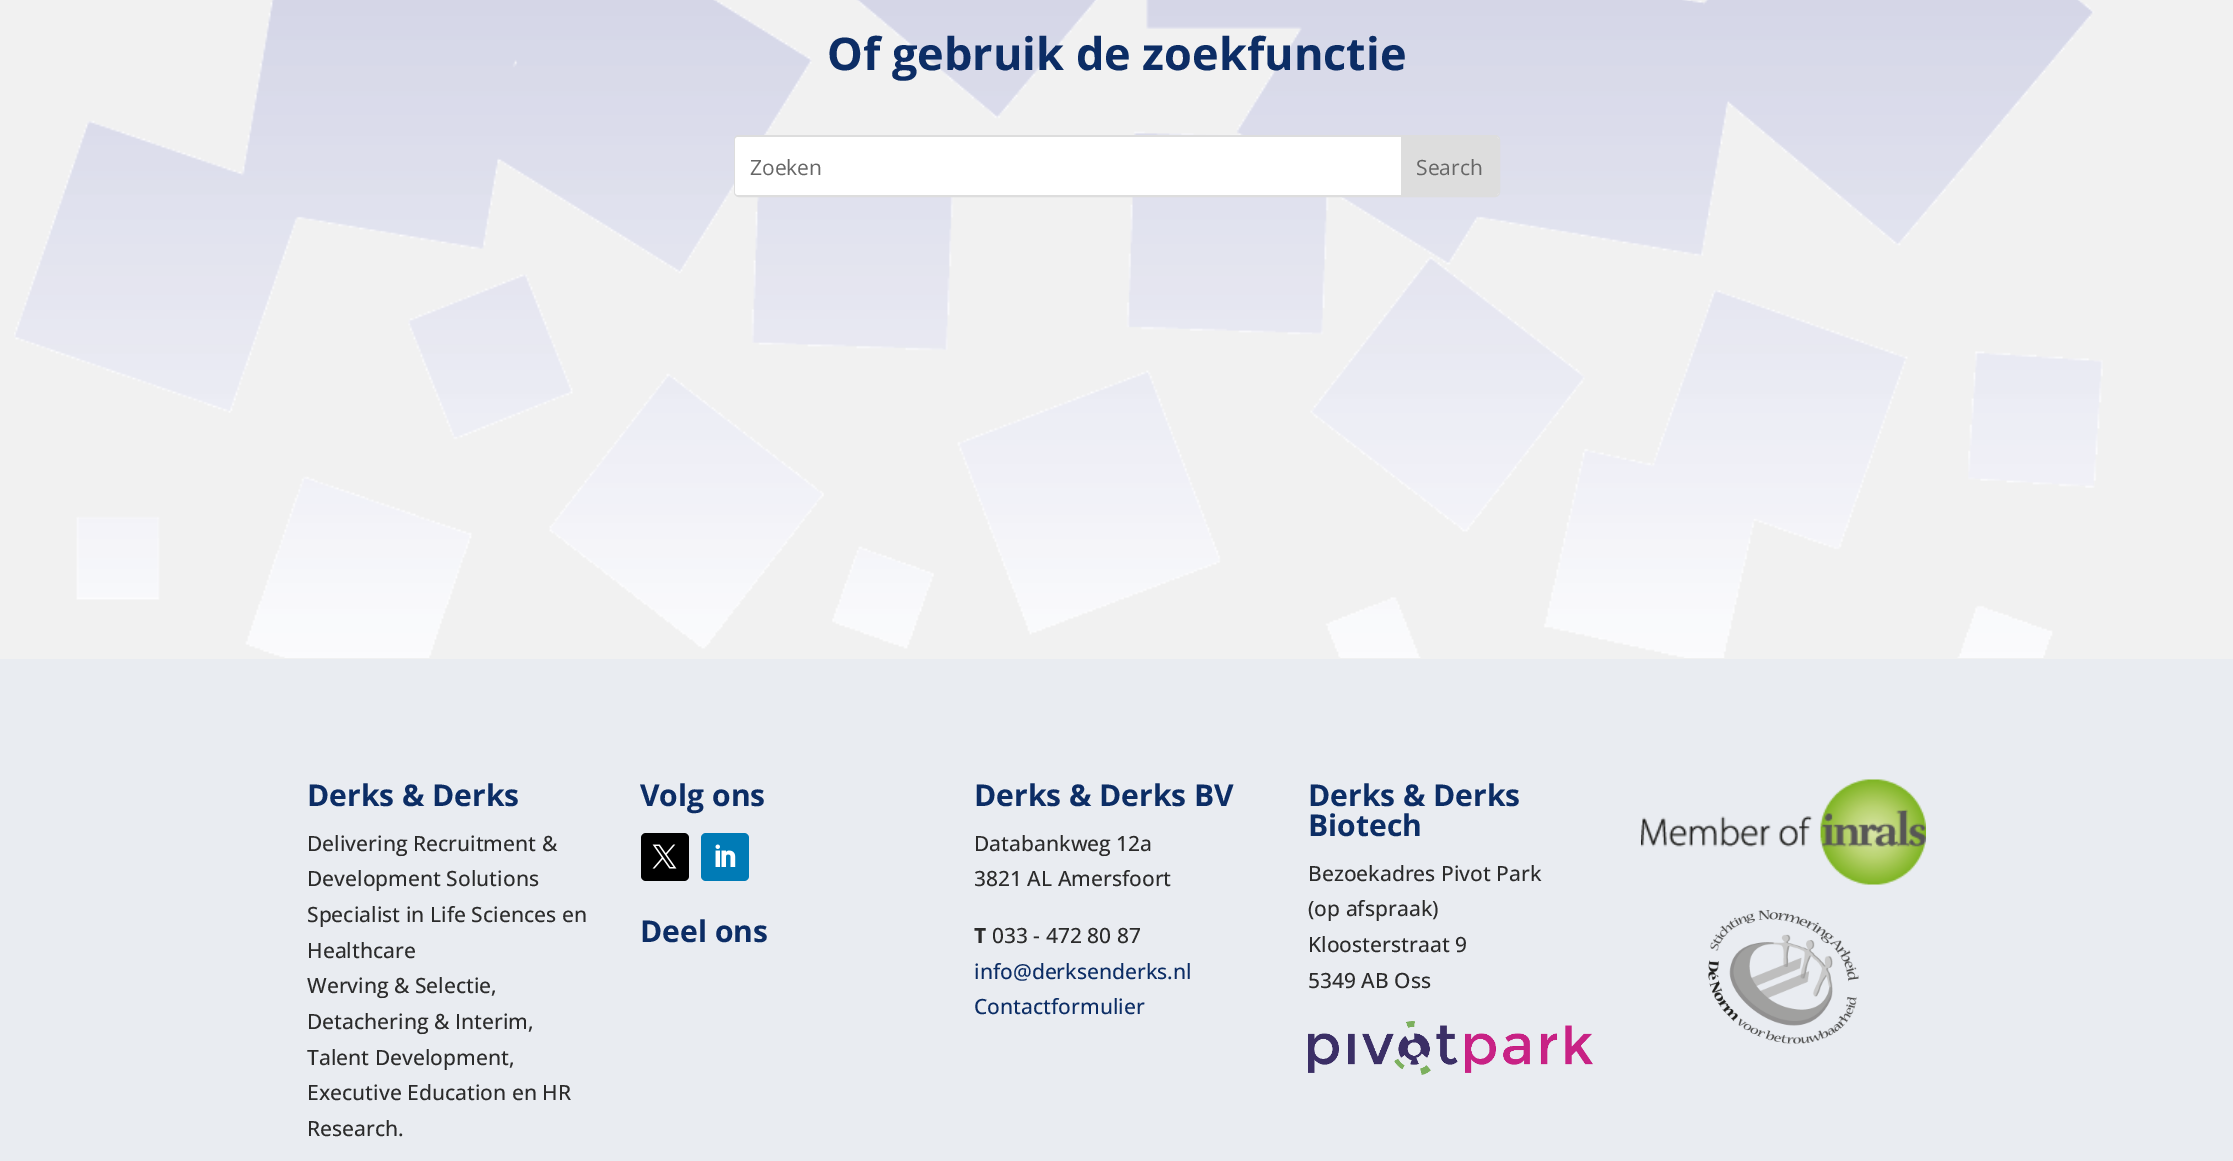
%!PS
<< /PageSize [2233 1161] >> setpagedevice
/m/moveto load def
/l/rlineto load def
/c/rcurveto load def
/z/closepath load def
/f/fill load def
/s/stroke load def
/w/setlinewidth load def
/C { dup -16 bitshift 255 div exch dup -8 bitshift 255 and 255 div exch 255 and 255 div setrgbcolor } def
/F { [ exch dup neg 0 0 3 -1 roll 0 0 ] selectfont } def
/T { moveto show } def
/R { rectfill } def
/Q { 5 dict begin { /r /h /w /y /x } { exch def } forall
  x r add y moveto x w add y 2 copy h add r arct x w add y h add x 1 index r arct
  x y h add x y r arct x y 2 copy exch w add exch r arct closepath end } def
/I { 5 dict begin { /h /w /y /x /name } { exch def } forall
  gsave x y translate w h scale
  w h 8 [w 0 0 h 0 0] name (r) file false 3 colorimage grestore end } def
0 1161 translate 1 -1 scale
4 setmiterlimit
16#F1F1F1 C
0 0 2233 1161 R
(1.rgb) 14 0 2089 658 I
/OpenSans-Bold 45 F
16#0C2D65 C
(Of gebruik de zoekfunctie) 827 70 T
16#DDDDDD C
2 w
735 136 764 60 4 Q s
16#FFFFFF C
735 137 764 58 3 Q f
/OpenSans-Regular 21 F
16#666666 C
(Zoeken) 750 175 T
16#DDDDDD C
1401 137 m 95 0 l 1.5 0 3 1.5 3 3 c 0 52 l 0 1.5 -1.5 3 -3 3 c -95 0 l z f
16#666666 C
(Search) 1416 175 T
16#E9ECF1 C
0 659 2233 502 R
/OpenSans-Bold 30 F
16#0C2D65 C
(Derks & Derks) 307 806 T
/OpenSans-Medium 21 F
16#2B2B2B C
(Delivering Recruitment &) 307 851 T
(Development Solutions) 307 886 T
(Specialist in Life Sciences en) 307 922 T
(Healthcare) 307 958 T
(Werving & Selectie,) 307 993 T
(Detachering & Interim,) 307 1029 T
(Talent Development,) 307 1065 T
(Executive Education en HR) 307 1100 T
(Research.) 307 1136 T
/OpenSans-Bold 30 F
16#0C2D65 C
(Volg ons) 640 806 T
16#000000 C
641 833 48 48 5 Q f
(2.rgb) 652 844 25 25 I
16#007BB6 C
701 833 48 48 5 Q f
(3.rgb) 715 844 21 23 I
16#0C2D65 C
(Deel ons) 640 942 T
(Derks & Derks BV) 974 806 T
/OpenSans-Medium 21 F
16#2B2B2B C
(Databankweg 12a) 974 851 T
(3821 AL Amersfoort) 974 886 T
/OpenSans-Bold 21 F
(T) 974 943 T
/OpenSans-Medium 21 F
(033 - 472 80 87) 992 943 T
16#0C2D65 C
(info@derksenderks.nl) 974 979 T
(Contactformulier) 974 1014 T
/OpenSans-Bold 30 F
(Derks & Derks) 1308 806 T
(Biotech) 1308 836 T
/OpenSans-Medium 21 F
16#2B2B2B C
(Bezoekadres Pivot Park) 1308 881 T
(\(op afspraak\)) 1308 916 T
(Kloosterstraat 9) 1308 952 T
(5349 AB Oss) 1308 988 T
(4.rgb) 1308 1021 285 54 I
(5.rgb) 1641 779 285 106 I
(6.rgb) 1708 910 151 134 I
showpage
